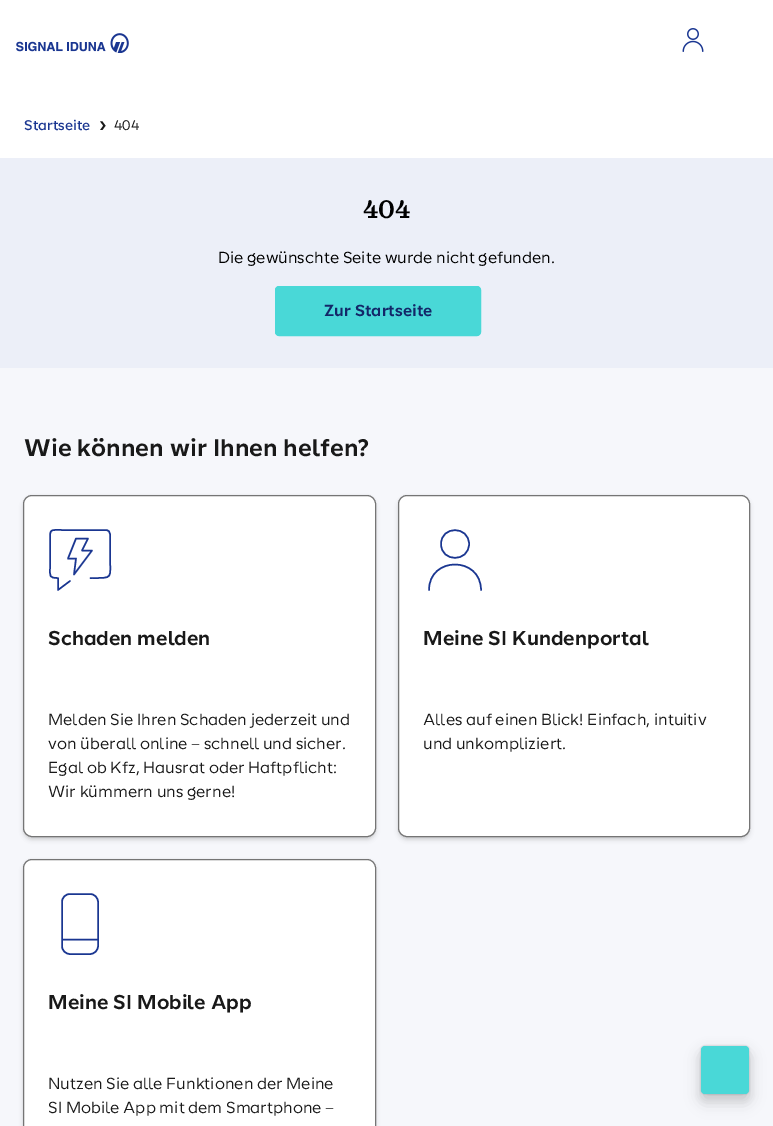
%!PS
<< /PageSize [773 1126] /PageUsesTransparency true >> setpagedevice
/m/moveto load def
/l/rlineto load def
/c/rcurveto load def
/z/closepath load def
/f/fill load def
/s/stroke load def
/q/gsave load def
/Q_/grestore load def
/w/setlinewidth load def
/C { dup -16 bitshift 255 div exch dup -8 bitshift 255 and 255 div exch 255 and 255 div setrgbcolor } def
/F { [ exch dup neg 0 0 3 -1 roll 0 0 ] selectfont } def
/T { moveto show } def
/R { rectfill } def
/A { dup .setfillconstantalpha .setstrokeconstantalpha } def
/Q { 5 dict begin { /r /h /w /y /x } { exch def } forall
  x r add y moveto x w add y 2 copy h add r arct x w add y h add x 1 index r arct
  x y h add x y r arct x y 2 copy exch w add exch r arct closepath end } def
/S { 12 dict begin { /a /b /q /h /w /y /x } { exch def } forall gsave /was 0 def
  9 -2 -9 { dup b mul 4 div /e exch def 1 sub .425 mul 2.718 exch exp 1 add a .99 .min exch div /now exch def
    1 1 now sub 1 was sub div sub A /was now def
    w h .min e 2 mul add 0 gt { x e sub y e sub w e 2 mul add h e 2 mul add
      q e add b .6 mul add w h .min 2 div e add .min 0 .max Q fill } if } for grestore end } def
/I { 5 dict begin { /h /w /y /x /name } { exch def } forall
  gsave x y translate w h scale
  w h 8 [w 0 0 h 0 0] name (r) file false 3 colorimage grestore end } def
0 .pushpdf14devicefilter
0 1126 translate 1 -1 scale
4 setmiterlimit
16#FFFFFF C
0 0 773 1126 R
(1.rgb) 16 33 113 20 I
(2.rgb) 682 28 22 24 I
16#F6F7FB C
0 368 773 758 R
16#000000 C
701 1046 48 48 4 1 .2 S
701 1052 48 48 4 6 .12 S
701 1054 48 48 4 8 .1 S
16#49D8D7 C
701 1046 48 48 4 Q f
/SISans-Medium 14 F
16#1A3691 C
(Startseite) 24 130 T
/SISans-Medium 24 F
16#191919 C
(›) 99 132 T
/SISans-Regular 14 F
(404) 114 130 T
16#ECEFF8 C
0 158 773 210 R
/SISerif-SemiBold 26 F
16#000000 C
(404) 363 218 T
/SISans-Regular 16 F
(Die gewünschte Seite wurde nicht gefunden.) 218 263 T
16#49D8D7 C
275.5 286.5 205 49 3.5 Q q f Q_
s
/SISans-SemiBold 16 F
16#132768 C
(Zur Startseite) 324 316 T
/SISans-SemiBold 24 F
16#191919 C
(Wie können wir Ihnen helfen?) 24 456 T
16#000000 C
24 496 351 340 8 1 .23 S
24 499 351 340 8 2.5 .2 S
16#FFFFFF C
24 496 351 340 8 Q f
16#757575 C
23.5 495.5 352 341 8.5 Q s
16#1A3691 C
1.5 w
1 setlinecap
1 setlinejoin
70 581 m -12 9 l 0 -12 l -9 0 -8 -1.5 -8 -10.5 c 0 -27 l 0 -12 0 -10.5 12.5 -10.5 c 43.5 0 l 5.5 0 4 7.5 4 10.5 c 0 13 l 0 26 4.5 24.5 -19.5 24.5 c 76 538.5 m 12 0 l -6 12 l 10 0 l -18 24 l 2 -16 l -8 0 l z s
/SISans-SemiBold 20 F
16#191919 C
(Schaden melden) 48 645 T
/SISans-Regular 16 F
(Melden Sie Ihren Schaden jederzeit und) 48 725 T
(von überall online – schnell und sicher.) 48 749 T
(Egal ob Kfz, Hausrat oder Haftpflicht:) 48 773 T
(Wir kümmern uns gerne!) 48 797 T
16#000000 C
399 496 350 340 8 1 .23 S
399 499 350 340 8 2.5 .2 S
16#FFFFFF C
399 496 350 340 8 Q f
16#757575 C
1 w
0 setlinecap
0 setlinejoin
398.5 495.5 351 341 8.5 Q s
16#1A3691 C
1.5 w
1 setlinecap
1 setlinejoin
441 544 m 0 18.5 28 18.5 28 0 c 0 -18.5 -28 -18.5 -28 0 c z 429 590 m 0 -34 52 -34 52 0 c s
/SISans-SemiBold 20 F
16#191919 C
(Meine SI Kundenportal) 423 645 T
/SISans-Regular 16 F
(Alles auf einen Blick! Einfach, intuitiv) 423 725 T
(und unkompliziert.) 423 749 T
16#000000 C
24 860 351 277 8 1 .23 S
24 863 351 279 8 2.5 .2 S
16#FFFFFF C
24 860 351 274 8 Q f
16#757575 C
1 w
0 setlinecap
0 setlinejoin
23.5 859.5 352 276 8.5 Q s
16#1A3691 C
1.5 w
1 setlinecap
1 setlinejoin
90 894 m -20 0 l -4.5 0 -8 3.5 -8 8 c 0 44 l 0 4.5 3.5 8 8 8 c 20 0 l 4.5 0 8 -3.5 8 -8 c 0 -44 l 0 -4.5 -3.5 -8 -8 -8 c z 62 939.5 m 36 0 l s
/SISans-SemiBold 20 F
16#191919 C
(Meine SI Mobile App) 48 1009 T
/SISans-Regular 16 F
(Nutzen Sie alle Funktionen der Meine) 48 1089 T
(SI Mobile App mit dem Smartphone –) 48 1113 T
.poppdf14devicefilter showpage
